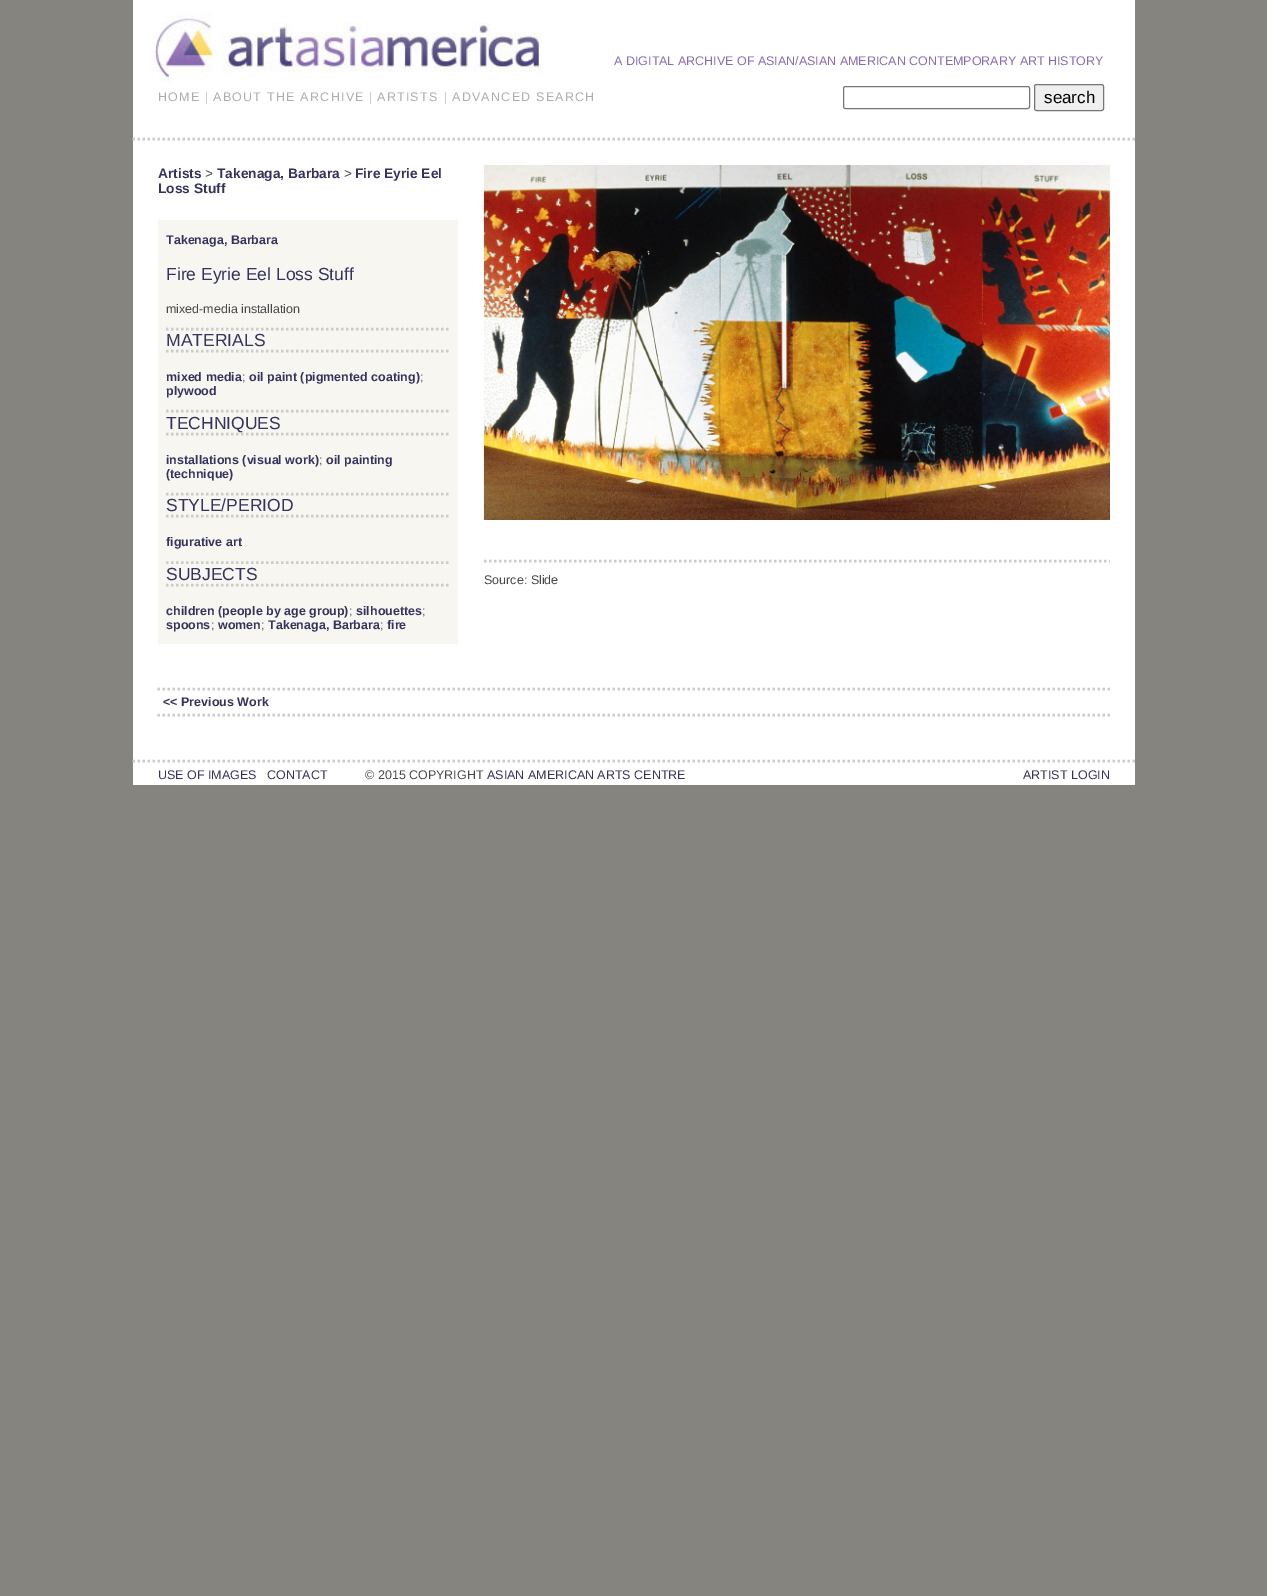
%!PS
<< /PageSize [1267 1596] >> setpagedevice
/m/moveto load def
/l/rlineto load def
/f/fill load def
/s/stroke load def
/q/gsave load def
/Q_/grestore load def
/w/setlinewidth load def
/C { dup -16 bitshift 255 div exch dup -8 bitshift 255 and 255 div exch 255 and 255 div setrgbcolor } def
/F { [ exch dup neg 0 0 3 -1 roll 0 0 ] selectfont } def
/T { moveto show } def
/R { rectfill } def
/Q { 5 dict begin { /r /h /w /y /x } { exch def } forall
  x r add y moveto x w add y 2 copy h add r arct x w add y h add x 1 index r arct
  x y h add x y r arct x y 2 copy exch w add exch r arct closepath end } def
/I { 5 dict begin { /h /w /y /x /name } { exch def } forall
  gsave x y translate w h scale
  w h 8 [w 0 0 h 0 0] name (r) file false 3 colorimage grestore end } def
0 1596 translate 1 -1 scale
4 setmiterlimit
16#85847F C
0 0 1267 1596 R
16#FFFFFF C
133 0 1002 785 R
(1.rgb) 151 12 391 70 I
/LiberationSans-Regular 12.5 F
16#8B6BB5 C
(A DIGITAL ARCHIVE OF ASIAN/ASIAN AMERICAN CONTEMPORARY ART HISTORY) 614 65 T
16#ADADAD C
158 101 m 1.25 0 (HOME) ashow
16#CCCCCC C
205 101 m 1.25 0 (|) ashow
16#ADADAD C
213 101 m 1.25 0 (ABOUT THE ARCHIVE) ashow
16#CCCCCC C
369 101 m 1.25 0 (|) ashow
16#ADADAD C
377 101 m 1.25 0 (ARTISTS) ashow
16#CCCCCC C
444 101 m 1.25 0 (|) ashow
16#ADADAD C
452 101 m 1.25 0 (ADVANCED SEARCH) ashow
16#767676 C
843.5 86.5 186 22 2 Q s
16#EFEFEF C
1034.5 84.5 69 26 2 Q q f Q_
16#767676 C
s
/LiberationSans-Regular 17 F
16#000000 C
(search) 1044 103 T
16#CCCCCC C
2.5 w
[2.5 2.5] 0 setdash
132.5 139 m 1002.5 0 l s
/LiberationSans-Bold 13.75 F
16#35335E C
(Artists) 158 178 T
/LiberationSans-Regular 13.75 F
16#48484A C
(>) 205 178 T
/LiberationSans-Bold 13.75 F
16#35335E C
(Takenaga, Barbara) 217 178 T
/LiberationSans-Regular 13.75 F
16#48484A C
(>) 344 178 T
/LiberationSans-Bold 13.75 F
16#35335E C
(Fire Eyrie Eel) 355 178 T
(Loss Stuff) 158 193 T
16#F7F6F1 C
158 220 300 424 R
/LiberationSans-Bold 12.5 F
16#35335E C
(Takenaga, Barbara) 166 244 T
/LiberationSans-Regular 17.5 F
(Fire Eyrie Eel Loss Stuff) 166 280 T
/LiberationSans-Regular 12.5 F
16#48484A C
(mixed-media installation) 166 313 T
16#CCCCCC C
166 329 m 283 0 l s
166 351 m 283 0 l s
/LiberationSans-Regular 17.5 F
16#35335E C
(MATERIALS) 166 346 T
/LiberationSans-Bold 12.5 F
(mixed media) 166 381 T
/LiberationSans-Regular 12.5 F
16#48484A C
(;) 242 381 T
/LiberationSans-Bold 12.5 F
16#35335E C
(oil paint \(pigmented coating\)) 249 381 T
/LiberationSans-Regular 12.5 F
16#48484A C
(;) 420 381 T
/LiberationSans-Bold 12.5 F
16#35335E C
(plywood) 166 395 T
16#CCCCCC C
166 411 m 283 0 l s
166 434 m 283 0 l s
/LiberationSans-Regular 17.5 F
16#35335E C
(TECHNIQUES) 166 429 T
/LiberationSans-Bold 12.5 F
(installations \(visual work\)) 166 464 T
/LiberationSans-Regular 12.5 F
16#48484A C
(;) 319 464 T
/LiberationSans-Bold 12.5 F
16#35335E C
(oil painting) 326 464 T
(\(technique\)) 166 478 T
16#CCCCCC C
166 494 m 283 0 l s
166 516 m 283 0 l s
/LiberationSans-Regular 17.5 F
16#35335E C
(STYLE/PERIOD) 166 511 T
/LiberationSans-Bold 12.5 F
(figurative art) 166 546 T
16#CCCCCC C
166 562.5 m 283 0 l s
166 585 m 283 0 l s
/LiberationSans-Regular 17.5 F
16#35335E C
(SUBJECTS) 166 580 T
/LiberationSans-Bold 12.5 F
(children \(people by age group\)) 166 615 T
/LiberationSans-Regular 12.5 F
16#48484A C
(;) 349 615 T
/LiberationSans-Bold 12.5 F
16#35335E C
(silhouettes) 356 615 T
/LiberationSans-Regular 12.5 F
16#48484A C
(;) 422 615 T
/LiberationSans-Bold 12.5 F
16#35335E C
(spoons) 166 629 T
/LiberationSans-Regular 12.5 F
16#48484A C
(;) 211 629 T
/LiberationSans-Bold 12.5 F
16#35335E C
(women) 218 629 T
/LiberationSans-Regular 12.5 F
16#48484A C
(;) 261 629 T
/LiberationSans-Bold 12.5 F
16#35335E C
(Takenaga, Barbara) 268 629 T
/LiberationSans-Regular 12.5 F
16#48484A C
(;) 380 629 T
/LiberationSans-Bold 12.5 F
16#35335E C
(fire) 387 629 T
16#CCCCCC C
484 561 m 626 0 l s
(2.rgb) 483 165 627 355 I
/LiberationSans-Regular 12.5 F
16#48484A C
(Source: Slide) 484 584 T
16#CCCCCC C
157.5 689 m 952.5 0 l s
157.5 715 m 952.5 0 l s
/LiberationSans-Bold 12.5 F
16#35335E C
(<< Previous Work) 163 706 T
16#CCCCCC C
132.5 761 m 1002.5 0 l s
/LiberationSans-Regular 12.5 F
16#35335E C
(USE OF IMAGES) 158 779 T
(CONTACT) 267 779 T
16#48484A C
(© 2015 COPYRIGHT) 365 779 T
16#35335E C
(ASIAN AMERICAN ARTS CENTRE) 487 779 T
(ARTIST LOGIN) 1023 779 T
showpage
